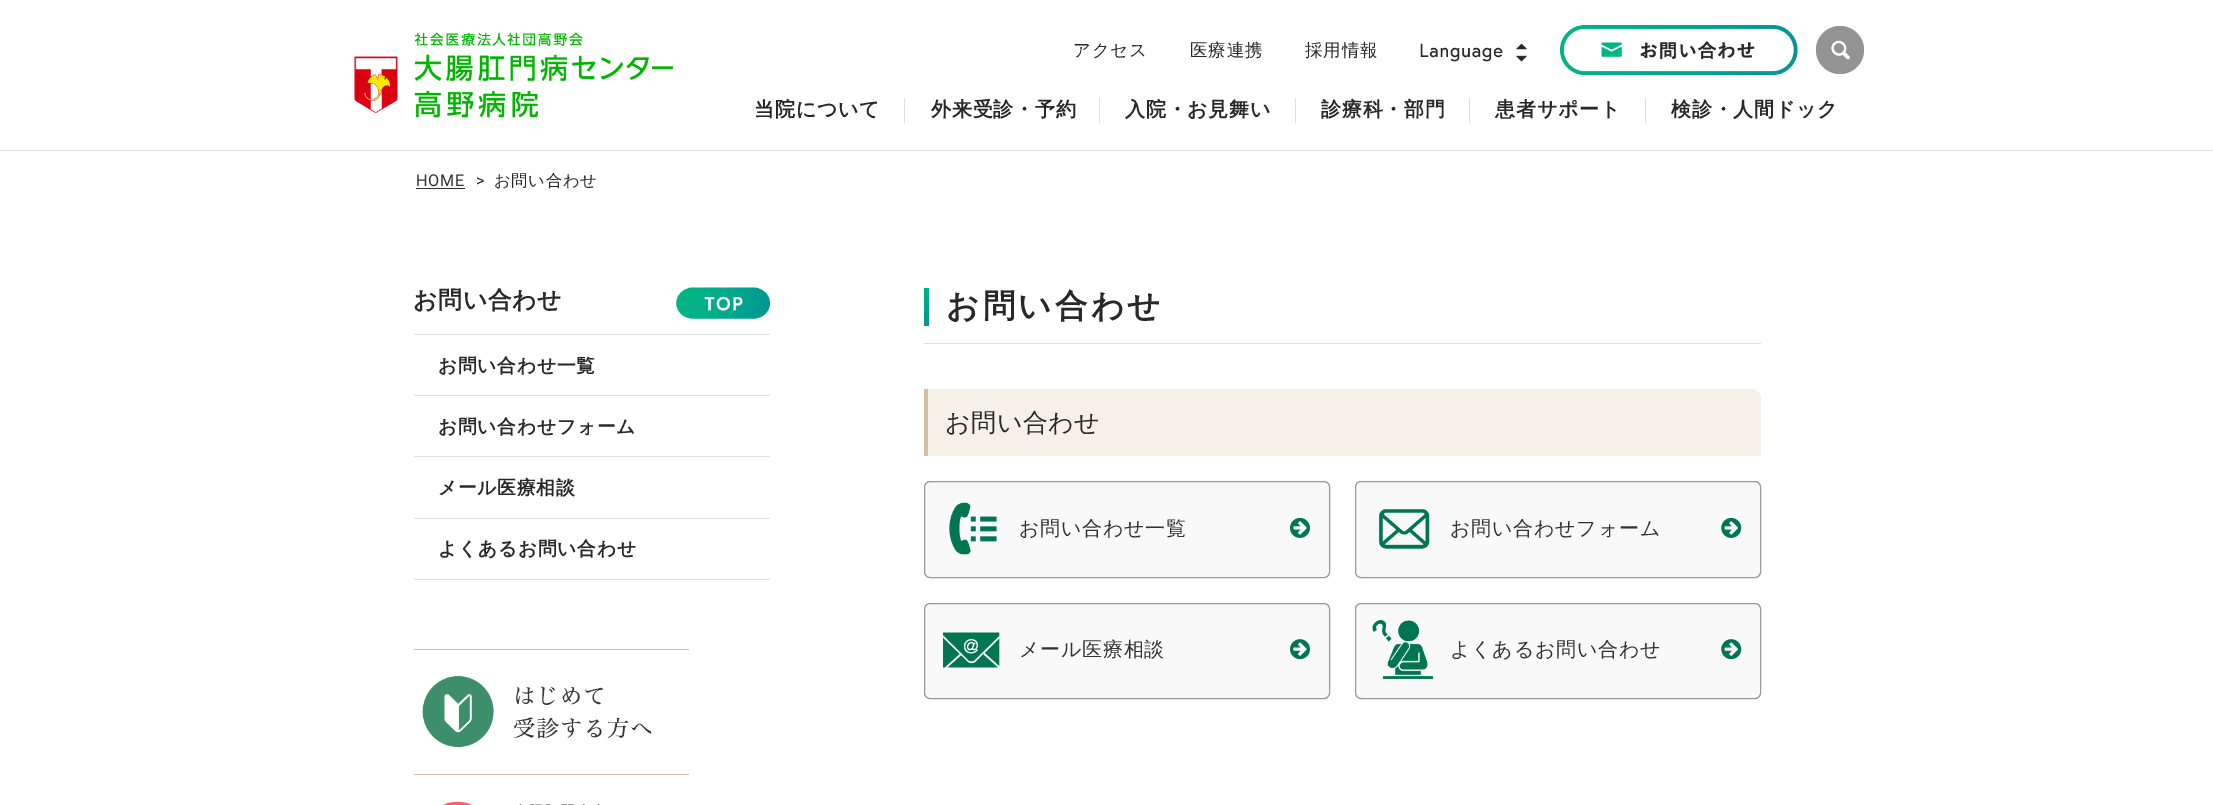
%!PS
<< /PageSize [2213 805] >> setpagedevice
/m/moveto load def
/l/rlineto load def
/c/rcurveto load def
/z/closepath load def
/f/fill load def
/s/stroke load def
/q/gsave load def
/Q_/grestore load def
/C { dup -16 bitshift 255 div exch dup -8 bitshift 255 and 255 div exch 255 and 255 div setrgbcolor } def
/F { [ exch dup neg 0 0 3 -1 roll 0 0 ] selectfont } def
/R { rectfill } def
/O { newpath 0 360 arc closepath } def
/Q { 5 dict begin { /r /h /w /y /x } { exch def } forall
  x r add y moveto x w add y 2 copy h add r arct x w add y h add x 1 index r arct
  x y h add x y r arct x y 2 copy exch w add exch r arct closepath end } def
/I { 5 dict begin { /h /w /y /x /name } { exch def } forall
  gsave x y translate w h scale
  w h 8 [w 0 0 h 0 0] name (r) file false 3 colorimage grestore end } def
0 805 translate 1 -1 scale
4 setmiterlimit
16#FFFFFF C
0 0 2213 805 R
(1.rgb) 354 32 319 86 I
/WenQuanYiZenHei-Medium 17.5 F
16#282828 C
1073 56 m .75 0 (アクセス) ashow
1190 56 m .75 0 (医療連携) ashow
1305 56 m .75 0 (採用情報) ashow
(2.rgb) 1420 43 107 19 I
(3.rgb) 1560 25 238 50 I
16#939393 C
1840 50 24 O f
(4.rgb) 1831 40 19 20 I
/WenQuanYiZenHei-Bold 20 F
16#282828 C
754 116 m .75 0 (当院について) ashow
16#DFDFDF C
904 98 1 25 R
16#282828 C
931 116 m .75 0 (外来受診・予約) ashow
16#DFDFDF C
1099 98 1 25 R
16#282828 C
1125 116 m .75 0 (入院・お見舞い) ashow
16#DFDFDF C
1295 98 1 25 R
16#282828 C
1321 116 m .75 0 (診療科・部門) ashow
16#DFDFDF C
1469 98 1 25 R
16#282828 C
1495 116 m .75 0 (患者サポート) ashow
16#DFDFDF C
1645 98 1 25 R
16#282828 C
1671 116 m .75 0 (検診・人間ドック) ashow
16#DFDFDF C
0 150 2213 1 R
/Roboto-Regular 16.25 F
16#333333 C
416 186 m .75 0 (HOME) ashow
416 188 49 1 R
16#282828 C
476 186 m .75 0 (>) ashow
/WenQuanYiZenHei-Medium 16.25 F
494 186 m .75 0 (お問い合わせ) ashow
/WenQuanYiZenHei-Bold 23.75 F
413 308 m .75 0 (お問い合わせ) ashow
(5.rgb) 676 287 94 32 I
16#DFDFDF C
414 334 356 1 R
/WenQuanYiZenHei-Bold 18.75 F
16#282828 C
438 372 m .75 0 (お問い合わせ一覧) ashow
16#DFDFDF C
414 395 356 1 R
16#282828 C
438 433 m .75 0 (お問い合わせフォーム) ashow
16#DFDFDF C
414 456 356 1 R
16#282828 C
438 494 m .75 0 (メール医療相談) ashow
16#DFDFDF C
414 518 356 1 R
414 579 356 1 R
16#282828 C
438 555 m .75 0 (よくあるお問い合わせ) ashow
16#D2BF9F C
414 649 275 1 R
414 774 275 1 R
(6.rgb) 422 675 230 73 I
(7.rgb) 442 801 158 4 I
q 924 288 m 5 0 l 0 38 l -5 0 l z clip newpath
<< /ShadingType 2 /ColorSpace /DeviceRGB /Coords [926 288 926 326] /Extend [true true] /Function << /FunctionType 2 /Domain [0 1] /C0 [0 .71 .522] /C1 [.016 .58 .596] /N 1 >> >> shfill Q_
/WenQuanYiZenHei-Bold 32.5 F
16#282828 C
946 317 m 3.25 0 (お問い合わせ) ashow
16#DFDFDF C
924 343 837 1 R
16#F5F1E9 C
924 389 m 827 0 l 5.5 0 10 4.5 10 10 c 0 57 l -837 0 l z f
16#D2BF9F C
924 389 4 67 R
/WenQuanYiZenHei-Medium 25 F
16#282828 C
945 431 m .5 0 (お問い合わせ) ashow
16#F9F9F9 C
924.5 481.5 405 96 5.5 Q q f Q_
16#999999 C
s
(8.rgb) 949 502 48 53 I
/WenQuanYiZenHei-Medium 20 F
16#333333 C
1019 535 m .75 0 (お問い合わせ一覧) ashow
(9.rgb) 1290 517 20 21 I
16#F9F9F9 C
1355.5 481.5 405 96 5.5 Q q f Q_
16#999999 C
s
(10.rgb) 1378 509 52 40 I
16#333333 C
1450 535 m .75 0 (お問い合わせフォーム) ashow
(11.rgb) 1721 517 21 21 I
16#F9F9F9 C
924.5 603.5 405 95 5.5 Q q f Q_
16#999999 C
s
(12.rgb) 943 632 57 36 I
16#333333 C
1019 656 m .75 0 (メール医療相談) ashow
(13.rgb) 1290 639 20 21 I
16#F9F9F9 C
1355.5 603.5 405 95 5.5 Q q f Q_
16#999999 C
s
(14.rgb) 1372 620 61 59 I
16#333333 C
1450 656 m .75 0 (よくあるお問い合わせ) ashow
(15.rgb) 1721 639 21 21 I
showpage
